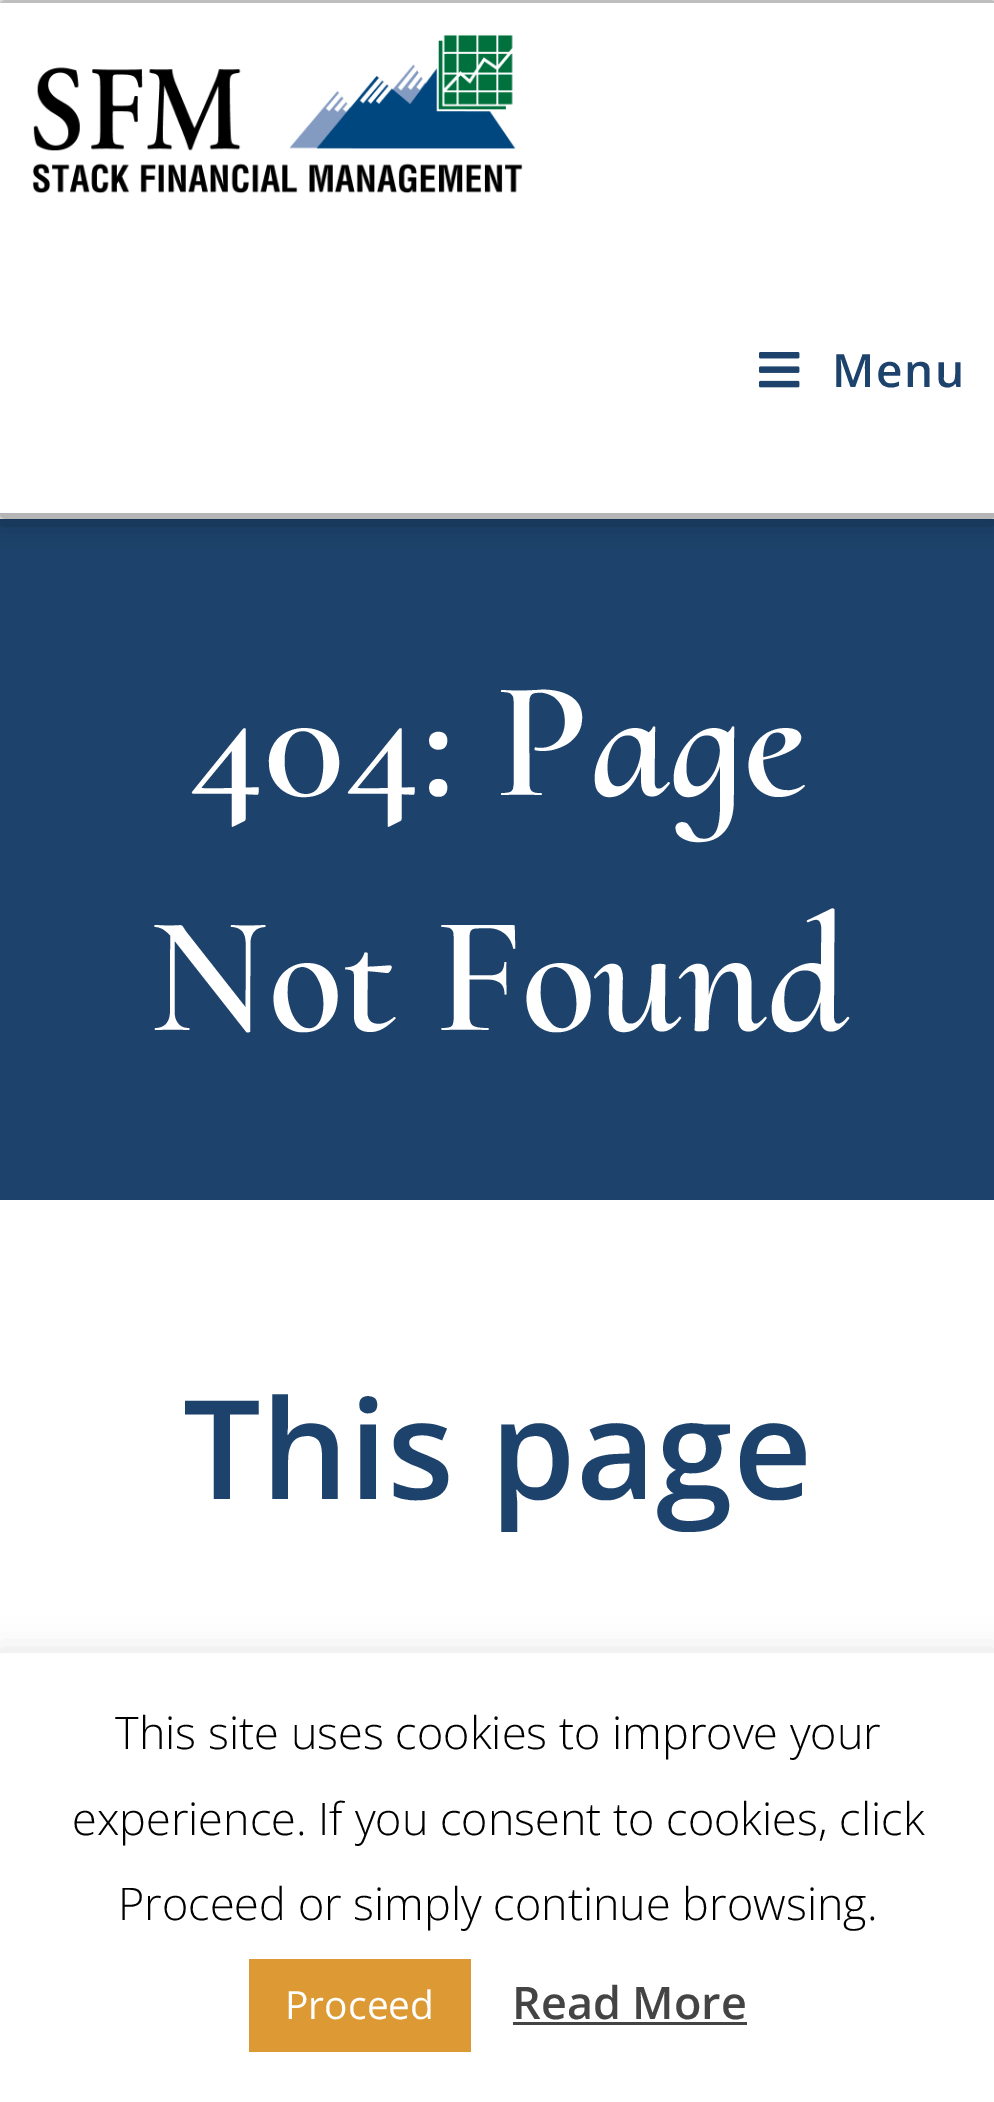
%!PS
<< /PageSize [994 2102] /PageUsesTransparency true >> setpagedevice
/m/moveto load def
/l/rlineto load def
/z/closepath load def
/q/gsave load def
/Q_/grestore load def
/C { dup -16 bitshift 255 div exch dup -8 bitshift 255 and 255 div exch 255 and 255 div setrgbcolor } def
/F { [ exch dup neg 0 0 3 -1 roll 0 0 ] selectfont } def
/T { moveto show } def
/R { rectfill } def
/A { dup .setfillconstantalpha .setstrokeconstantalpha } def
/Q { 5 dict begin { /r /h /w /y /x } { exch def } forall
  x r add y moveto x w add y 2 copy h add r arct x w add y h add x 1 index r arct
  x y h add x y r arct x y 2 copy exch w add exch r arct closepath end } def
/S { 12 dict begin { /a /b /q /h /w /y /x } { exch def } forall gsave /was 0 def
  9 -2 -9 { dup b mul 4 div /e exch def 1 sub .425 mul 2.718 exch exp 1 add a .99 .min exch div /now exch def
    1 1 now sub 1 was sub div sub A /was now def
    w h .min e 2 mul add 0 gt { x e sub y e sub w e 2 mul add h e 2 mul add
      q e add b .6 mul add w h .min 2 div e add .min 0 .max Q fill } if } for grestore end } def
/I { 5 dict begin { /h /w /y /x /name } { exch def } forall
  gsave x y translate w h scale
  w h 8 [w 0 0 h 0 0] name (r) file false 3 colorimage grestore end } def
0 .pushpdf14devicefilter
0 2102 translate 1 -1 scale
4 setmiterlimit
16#FFFFFF C
0 0 994 2102 R
16#F1F1F1 C
0 516 994 3 R
16#1D436C C
0 519 994 681 R
q
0 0 m 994 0 l 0 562 l -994 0 l z 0 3 m 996 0 l 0 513 l -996 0 l z eoclip newpath
16#000000 C
0 3 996 513 0 15 .5 S
Q_
16#B5B5B5 C
0 513 994 3 R
(1.rgb) 32 34 491 160 I
(2.rgb) 759 352 41 36 I
/OpenSans-SemiBold 46 F
16#1D436C C
832 387 m 1.5 0 (Menu) ashow
/CormorantUpright-SemiBold 168 F
16#FFFFFF C
(404: Page) 188 795 T
(Not Found) 150 1030 T
/OpenSans-SemiBold 138 F
16#1D436C C
(This page) 183 1499 T
16#ACABAB C
0 1650 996 450 0 15 .3 S
16#FFFFFF C
0 1653 994 449 R
/OpenSans-Light 45 F
16#000000 C
(This site uses cookies to improve your) 115 1749 T
(experience. If you consent to cookies, click) 72 1835 T
(Proceed or simply continue browsing.) 118 1920 T
16#DD9933 C
249 1959 222 93 R
/OpenSans-Regular 39 F
16#FFFFFF C
(Proceed) 285 2019 T
/OpenSans-SemiBold 45 F
16#444444 C
(Read More) 512 2019 T
513 2022 234 3 R
.poppdf14devicefilter showpage
